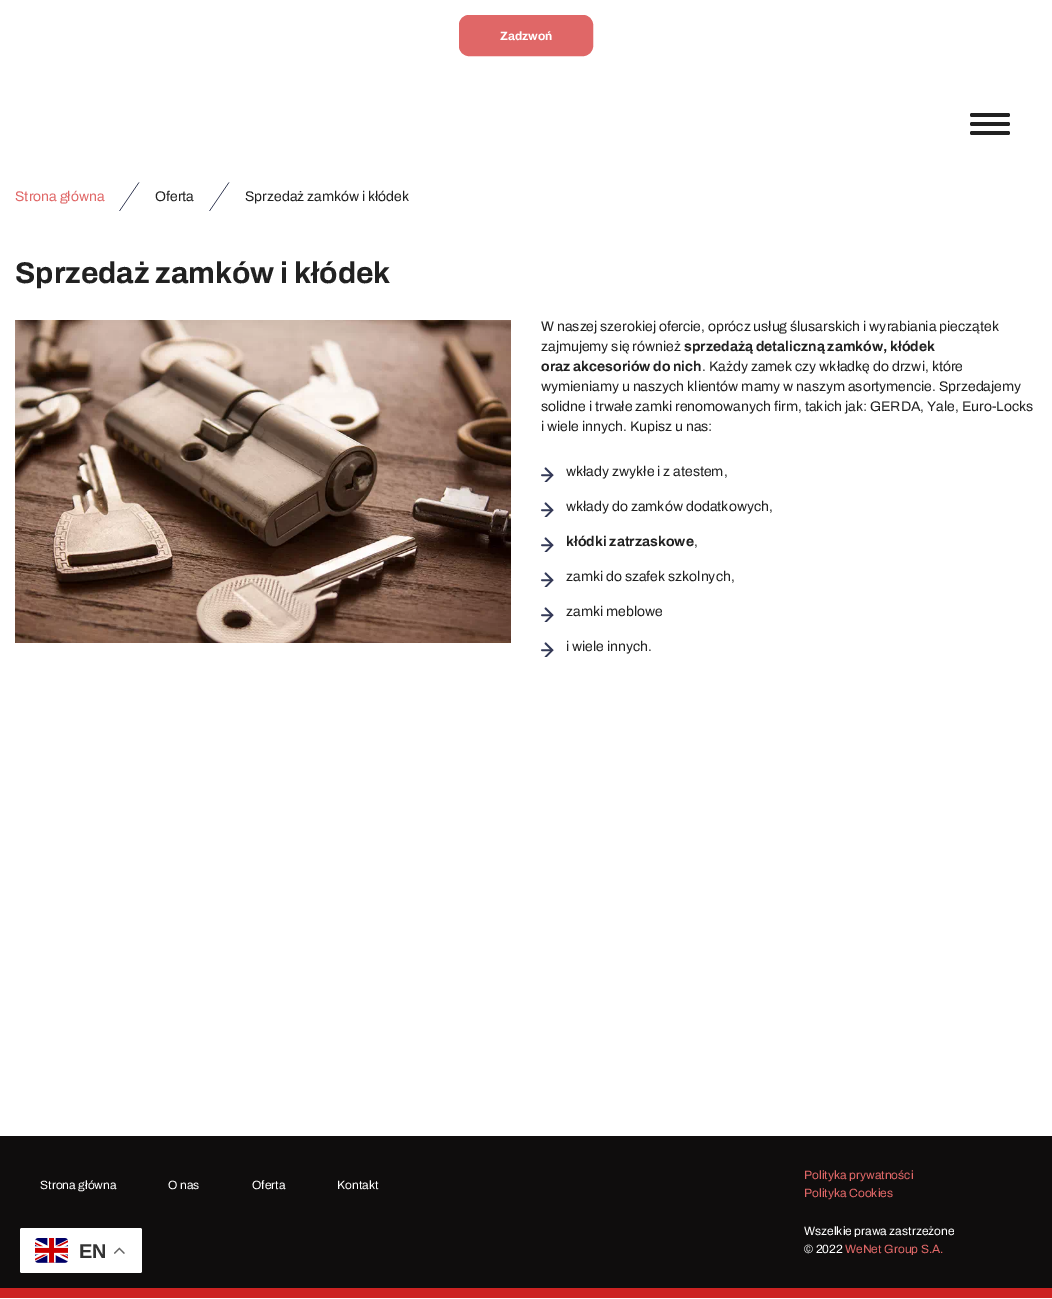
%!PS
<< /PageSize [1052 1299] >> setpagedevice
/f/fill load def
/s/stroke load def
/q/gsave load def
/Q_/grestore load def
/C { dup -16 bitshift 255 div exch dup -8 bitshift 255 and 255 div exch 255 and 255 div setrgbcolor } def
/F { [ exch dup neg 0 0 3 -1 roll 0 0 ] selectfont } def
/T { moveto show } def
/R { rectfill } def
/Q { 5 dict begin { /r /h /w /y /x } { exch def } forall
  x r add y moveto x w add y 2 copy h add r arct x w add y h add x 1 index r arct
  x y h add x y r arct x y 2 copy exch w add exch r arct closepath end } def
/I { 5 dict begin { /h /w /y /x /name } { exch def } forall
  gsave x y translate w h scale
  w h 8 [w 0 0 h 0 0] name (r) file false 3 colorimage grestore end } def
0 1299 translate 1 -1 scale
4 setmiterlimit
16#FFFFFF C
0 0 1052 1299 R
16#E06767 C
459.5 15.5 133 40 9.5 Q q f Q_
s
/Archivo-Bold 12 F
16#FFFFFF C
(Zadzwoń) 500 40 T
16#212121 C
970 113 40 4 2 Q f
970 122 40 4 2 Q f
970 131 40 4 2 Q f
/Archivo-Regular 14 F
16#E06767 C
(Strona główna) 15 201 T
(1.rgb) 119 182 21 29 I
16#212121 C
(Oferta) 155 201 T
(1.rgb) 209 182 21 29 I
(Sprzedaż zamków i kłódek) 245 201 T
/Archivo-Bold 30 F
(Sprzedaż zamków i kłódek) 15 283 T
(2.rgb) 15 320 496 323 I
/Archivo-Regular 14 F
(W naszej szerokiej ofercie, oprócz usług ślusarskich i wyrabiania pieczątek) 541 331 T
(zajmujemy się również) 541 351 T
/Archivo-Bold 14 F
(sprzedażą detaliczną zamków, kłódek) 684 351 T
(oraz akcesoriów do nich) 541 371 T
/Archivo-Regular 14 F
(. Każdy zamek czy wkładkę do drzwi, które) 702 371 T
(wymieniamy u naszych klientów mamy w naszym asortymencie. Sprzedajemy) 541 391 T
(solidne i trwałe zamki renomowanych firm, takich jak: GERDA, Yale, Euro-Locks) 541 411 T
(i wiele innych. Kupisz u nas:) 541 431 T
(3.rgb) 541 467 13 15 I
(wkłady zwykłe i z atestem,) 566 476 T
(3.rgb) 541 502 13 15 I
(wkłady do zamków dodatkowych,) 566 511 T
(3.rgb) 541 537 13 15 I
/Archivo-Bold 14 F
(kłódki zatrzaskowe) 566 546 T
/Archivo-Regular 14 F
(,) 694 546 T
(3.rgb) 541 572 13 15 I
(zamki do szafek szkolnych,) 566 581 T
(3.rgb) 541 607 13 15 I
(zamki meblowe) 566 616 T
(3.rgb) 541 642 13 15 I
(i wiele innych.) 566 651 T
16#0F0D0D C
0 1136 1052 152 R
16#FFFFFF C
20 1228 122 45 2 Q f
(4.rgb) 35 1238 33 25 I
/LiberationSans-Bold 20 F
16#333333 C
(EN) 79 1258 T
(5.rgb) 114 1247 11 7 I
16#CC2121 C
0 1288 1052 10 R
/Archivo-Regular 12 F
16#FFFFFF C
(Strona główna) 40 1189 T
(O nas) 168 1189 T
(Oferta) 252 1189 T
(Kontakt) 337 1189 T
16#E06767 C
(Polityka prywatności) 804 1179 T
(Polityka Cookies) 804 1197 T
16#FFFFFF C
(Wszelkie prawa zastrzeżone) 804 1235 T
(© 2022) 804 1253 T
16#E06767 C
(WeNet Group S.A.) 845 1253 T
showpage
